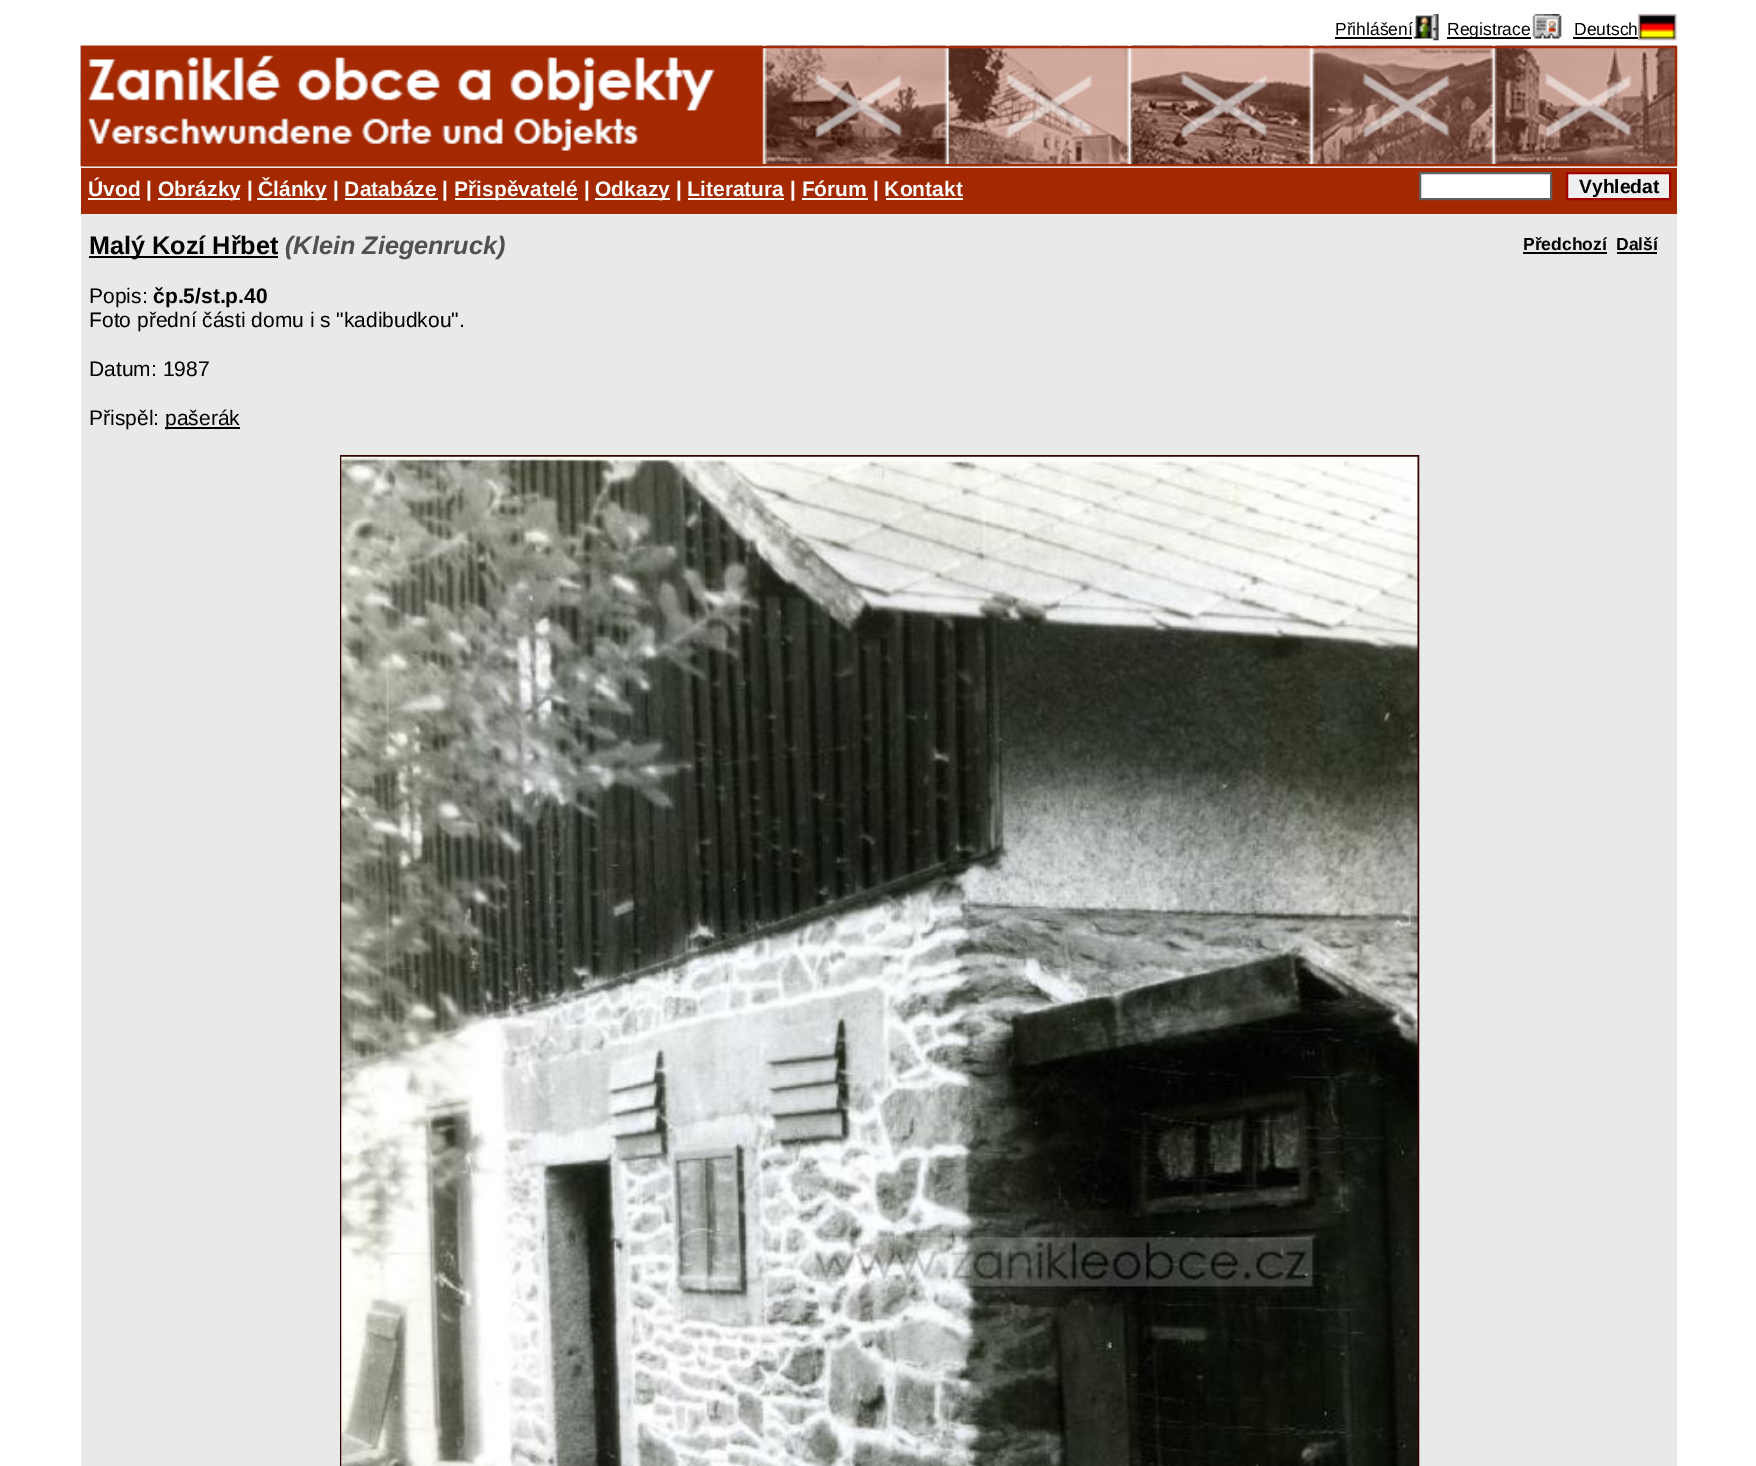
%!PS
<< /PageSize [1756 1466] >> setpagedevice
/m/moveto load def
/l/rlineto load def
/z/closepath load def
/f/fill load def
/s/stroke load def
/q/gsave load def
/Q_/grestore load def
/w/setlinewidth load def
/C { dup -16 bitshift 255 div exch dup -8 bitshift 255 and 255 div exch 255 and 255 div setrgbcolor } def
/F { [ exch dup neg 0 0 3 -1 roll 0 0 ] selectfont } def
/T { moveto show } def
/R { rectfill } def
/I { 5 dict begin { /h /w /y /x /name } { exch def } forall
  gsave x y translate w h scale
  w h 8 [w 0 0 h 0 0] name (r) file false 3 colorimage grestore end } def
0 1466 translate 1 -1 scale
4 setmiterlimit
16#FFFFFF C
0 0 1756 1466 R
16#E9E9E9 C
81 166 1596 1300 R
/LiberationSans-Regular 17.5 F
16#000000 C
(Přihlášení) 1335 35 T
1335 37 77 2 R
(1.rgb) 1413 14 26 27 I
1447 37 84 2 R
(Registrace) 1447 35 T
(2.rgb) 1532 14 30 25 I
(Deutsch) 1574 35 T
1573 37 65 2 R
(3.rgb) 1638 14 39 27 I
(4.rgb) 80 45 1597 122 I
16#A42900 C
2 w
82 47 1594 118 rectstroke
81 168 1596 46 R
16#FFFFFF C
88 198 52 2 R
/LiberationSans-Bold 21 F
(Úvod |) 88 196 T
158 198 82 2 R
(Obrázky |) 158 196 T
257 198 70 2 R
(Články | Databáze |) 258 196 T
455 198 123 2 R
(Přispěvatelé |) 454 196 T
595 198 75 2 R
(Odkazy | Literatura | Fórum | Kontakt) 595 196 T
345 198 93 2 R
688 198 96 2 R
802 198 66 2 R
886 198 77 2 R
1420 173 m 131 0 l 0 26 l -131 0 l z q f Q_
16#606060 C
s
16#EFEFEF C
1567 173 m 103 0 l 0 26 l -103 0 l z q f Q_
16#A00000 C
s
/LiberationSans-Bold 19.25 F
16#000000 C
(Vyhledat) 1579 193 T
89 256 189 2 R
/LiberationSans-Bold 25.25 F
(Malý Kozí Hřbet) 89 254 T
/LiberationSans-BoldItalic 25.25 F
16#505050 C
(\(Klein Ziegenruck\)) 285 254 T
/LiberationSans-Bold 17.5 F
16#000000 C
(Předchozí) 1523 250 T
1523 252 84 2 R
(Další) 1616 250 T
1617 252 40 2 R
/LiberationSans-Regular 21 F
(Popis:) 89 303 T
/LiberationSans-Bold 21 F
(čp.5/st.p.40) 153 303 T
/LiberationSans-Regular 21 F
(Foto přední části domu i s "kadibudkou".) 89 327 T
(Datum: 1987) 89 376 T
(Přispěl:) 89 425 T
165 427 75 2 R
(pašerák) 165 425 T
16#330000 C
341 456 1077 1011 rectstroke
(5.rgb) 341 456 1077 1010 I
showpage
